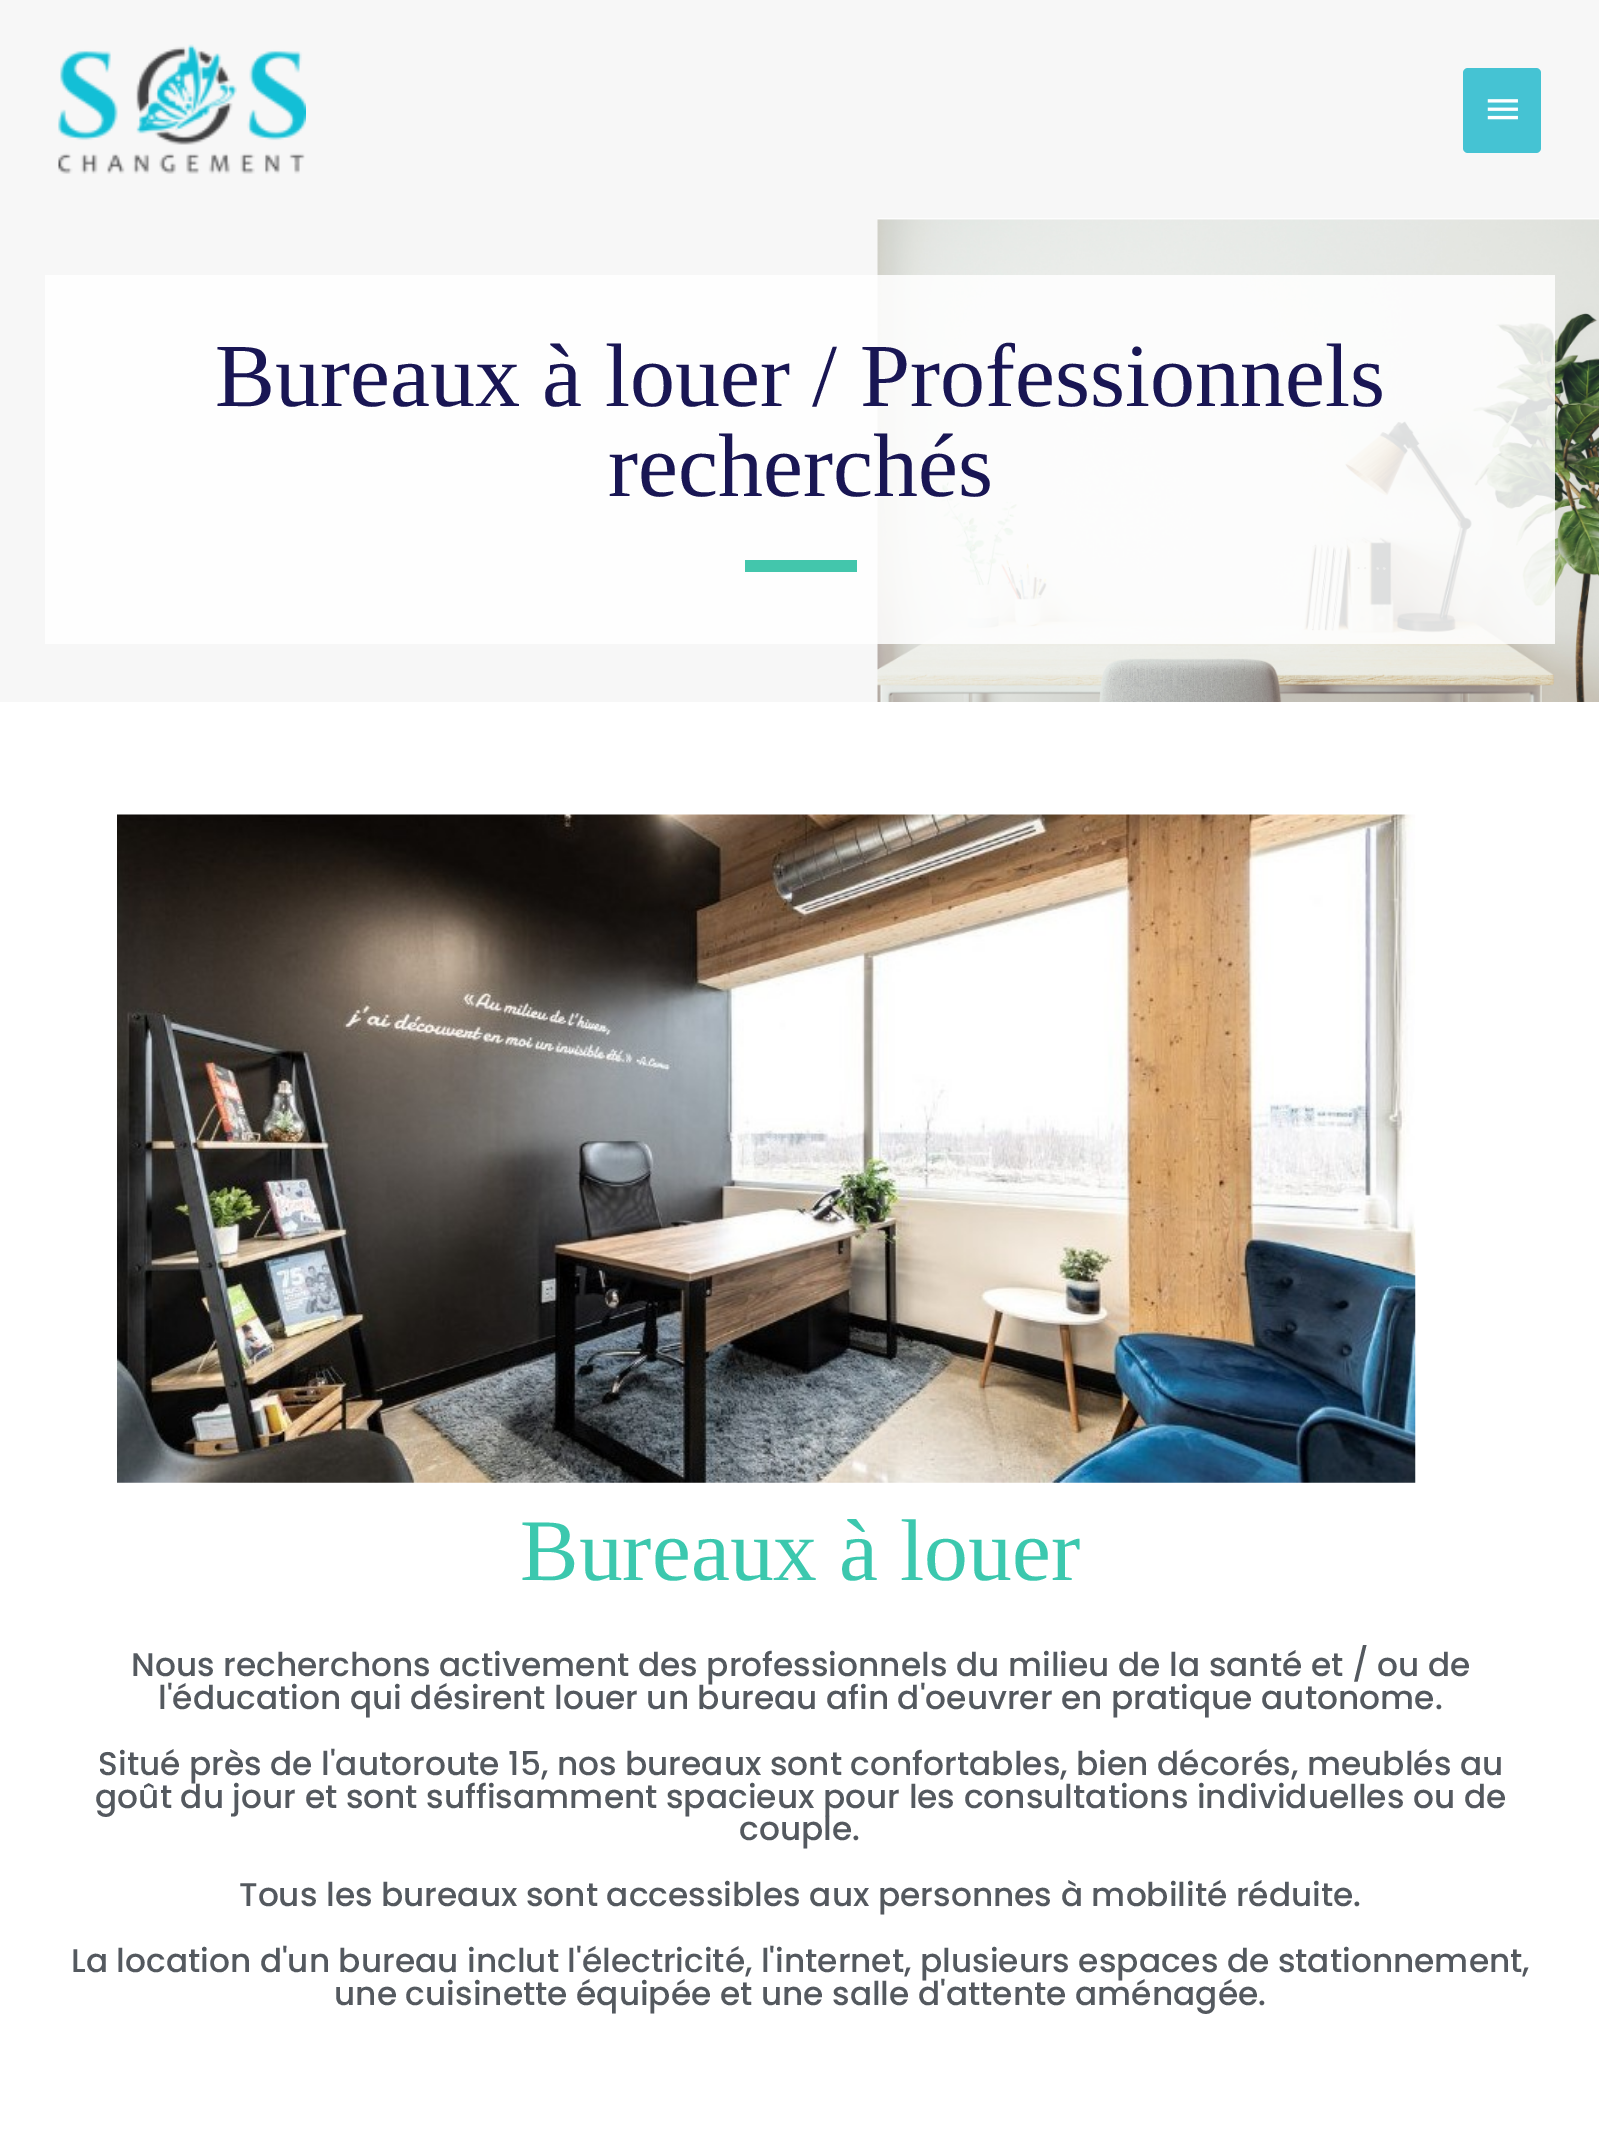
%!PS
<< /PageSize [1599 2141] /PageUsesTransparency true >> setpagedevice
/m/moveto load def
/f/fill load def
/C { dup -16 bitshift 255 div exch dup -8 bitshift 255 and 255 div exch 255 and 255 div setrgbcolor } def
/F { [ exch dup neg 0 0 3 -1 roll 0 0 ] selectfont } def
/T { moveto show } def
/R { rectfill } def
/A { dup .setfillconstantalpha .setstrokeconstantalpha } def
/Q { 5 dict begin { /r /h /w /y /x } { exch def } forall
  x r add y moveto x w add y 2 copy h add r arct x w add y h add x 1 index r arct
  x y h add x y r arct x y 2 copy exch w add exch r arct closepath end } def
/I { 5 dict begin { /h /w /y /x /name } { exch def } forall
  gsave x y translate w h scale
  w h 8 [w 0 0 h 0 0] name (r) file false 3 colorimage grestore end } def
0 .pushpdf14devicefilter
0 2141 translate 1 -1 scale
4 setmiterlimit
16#FFFFFF C
0 0 1599 2141 R
16#F7F7F7 C
0 0 1599 702 R
(1.rgb) 58 44 248 130 I
16#45C3D3 C
1463 68 78 85 5 Q f
(2.rgb) 1487 99 31 21 I
(3.rgb) 877 218 722 484 I
0.85 A
16#FFFFFF C
45 275 1510 369 R
/LiberationSerif-Regular 90 F
1 A
16#191654 C
(Bureaux à louer / Professionnels) 215 406 T
(recherchés) 608 496 T
16#43C6AC C
745 560 112 12 R
(4.rgb) 117 814 1299 669 I
/LiberationSerif-Regular 87.75 F
16#3CC8AE C
(Bureaux à louer) 520 1580 T
/Poppins-Medium 32.85 F
16#54595F C
(Nous recherchons activement des professionnels du milieu de la santé et / ou de) 131 1676 T
158 1709 m -.1 0 32 (l'éducation qui désirent louer un bureau afin d'oeuvrer en pratique autonome.) widthshow
(Situé près de l'autoroute 15, nos bureaux sont confortables, bien décorés, meublés au) 98 1775 T
(goût du jour et sont suffisamment spacieux pour les consultations individuelles ou de) 95 1808 T
(couple.) 739 1840 T
(Tous les bureaux sont accessibles aux personnes à mobilité réduite.) 239 1906 T
71 1972 m -.1 0 32 (La location d'un bureau inclut l'électricité, l'internet, plusieurs espaces de stationnement,) widthshow
334 2005 m -.1 0 32 (une cuisinette équipée et une salle d'attente aménagée.) widthshow
.poppdf14devicefilter showpage
